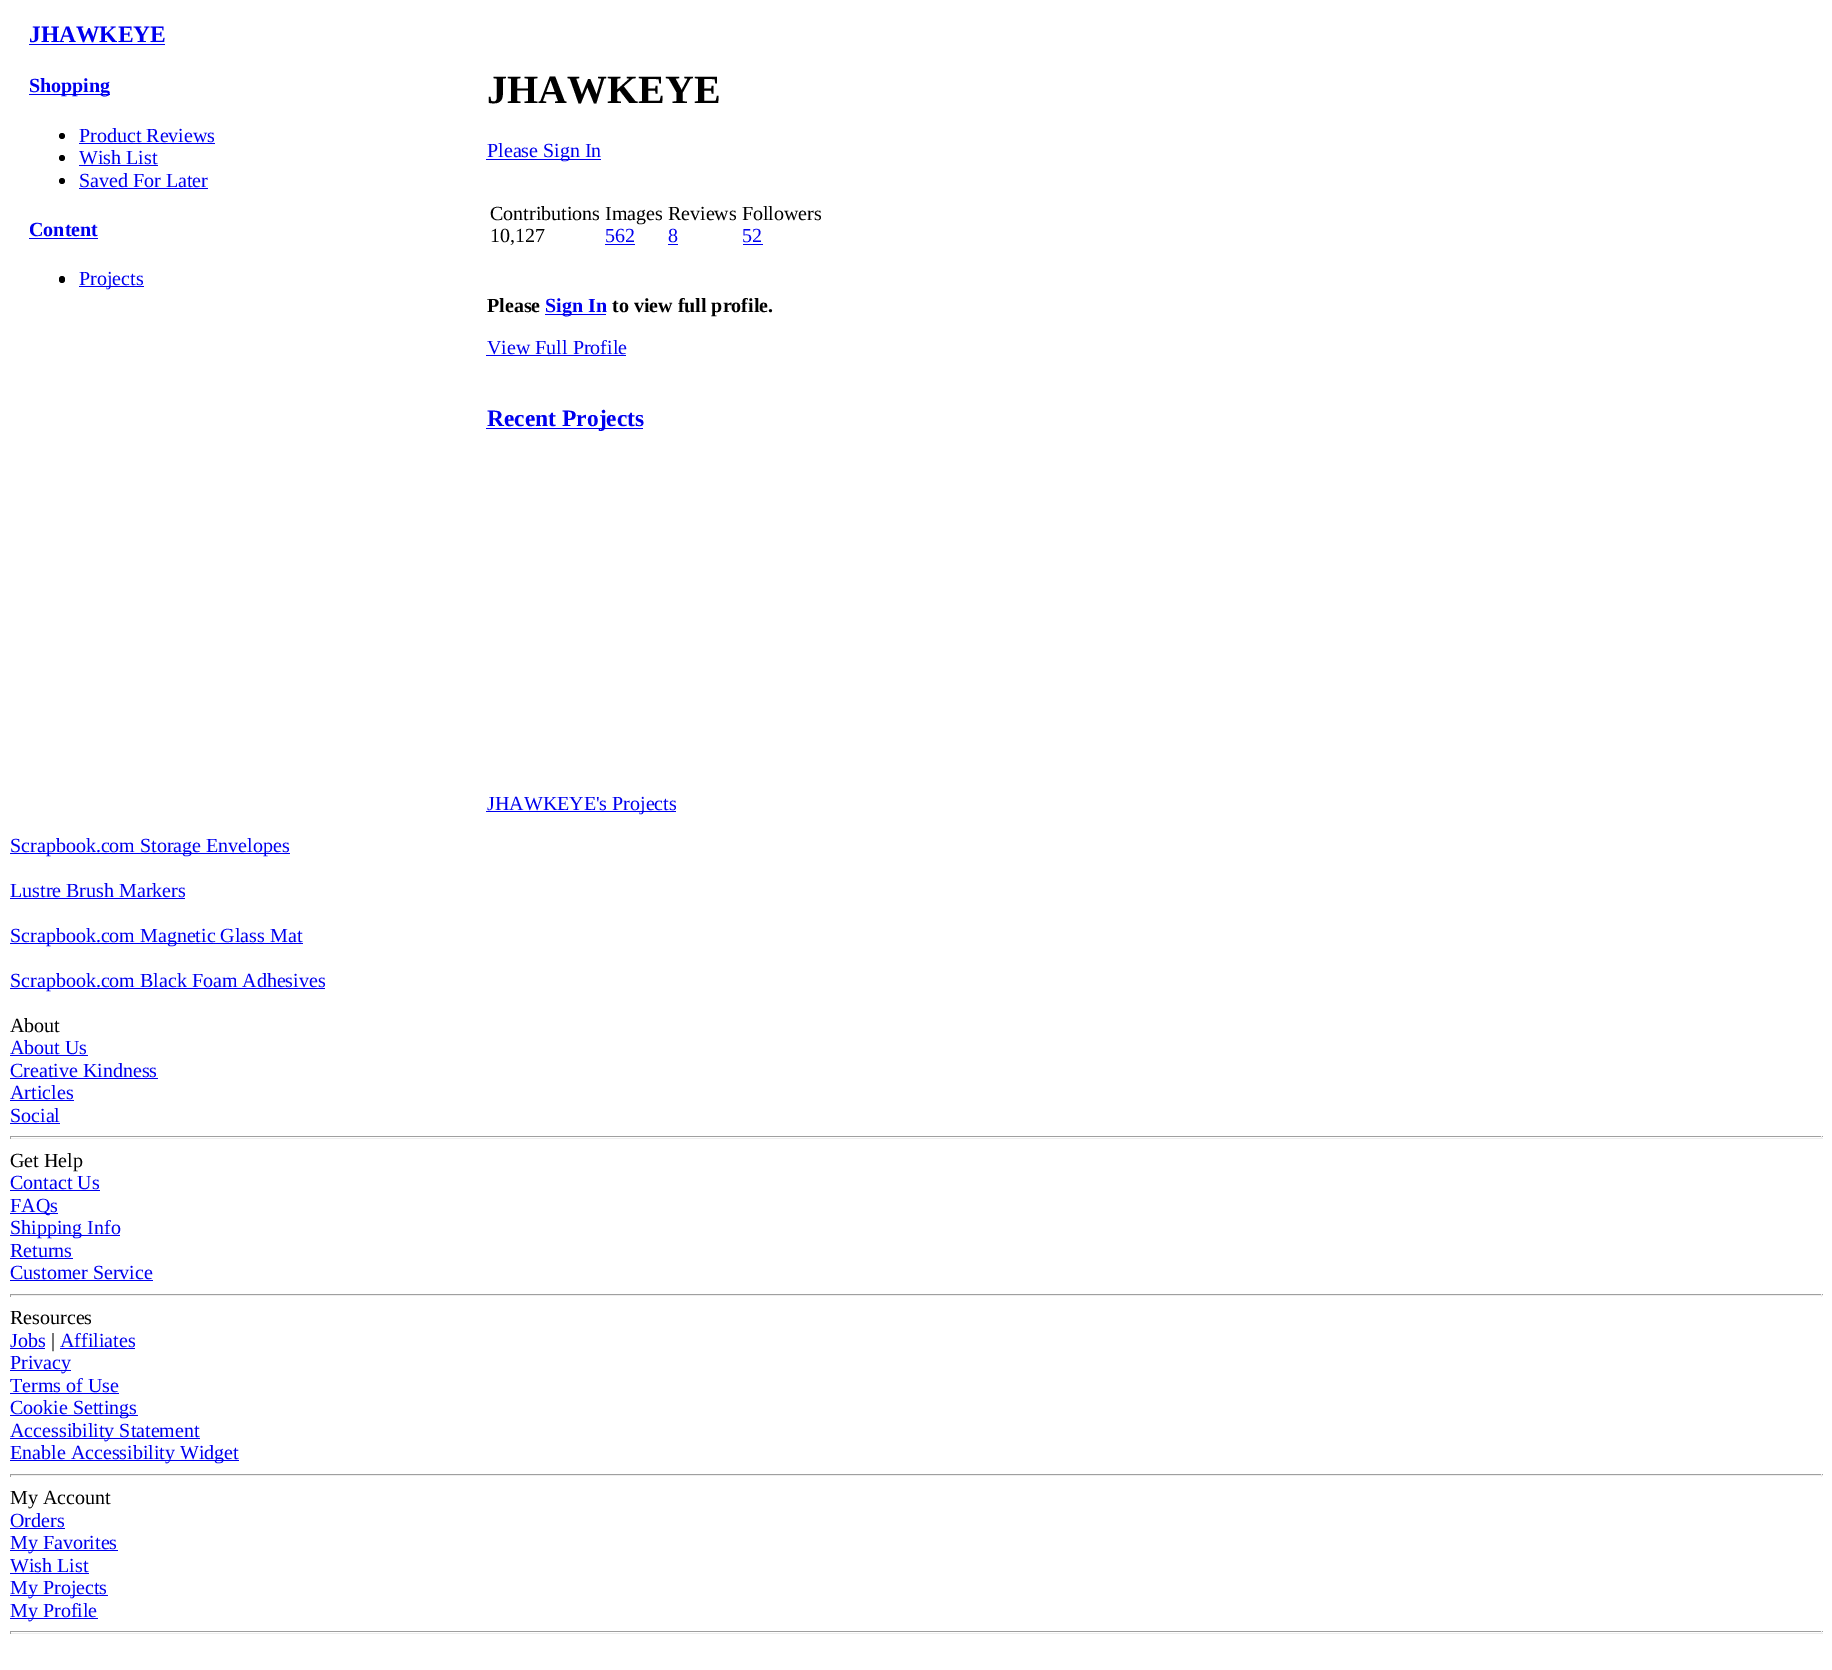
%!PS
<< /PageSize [1832 1670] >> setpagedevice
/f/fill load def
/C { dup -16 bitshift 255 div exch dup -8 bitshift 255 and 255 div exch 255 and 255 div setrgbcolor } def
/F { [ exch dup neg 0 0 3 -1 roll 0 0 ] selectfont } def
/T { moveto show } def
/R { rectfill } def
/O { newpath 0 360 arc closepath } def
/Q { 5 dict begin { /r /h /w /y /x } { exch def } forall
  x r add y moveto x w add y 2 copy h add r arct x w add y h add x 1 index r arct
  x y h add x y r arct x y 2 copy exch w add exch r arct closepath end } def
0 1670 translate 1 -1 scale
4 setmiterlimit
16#FFFFFF C
0 0 1832 1670 R
/LiberationSerif-Bold 23.5 F
16#0000EE C
(JHAWKEYE) 29 42 T
29 44 136 1 R
29 94 81 1 R
/LiberationSerif-Bold 20 F
(Shopping) 29 92 T
16#000000 C
62 136 3 O f
/LiberationSerif-Regular 20 F
16#0000EE C
(Product Reviews) 79 142 T
79 143 136 1 R
16#000000 C
62 158 3 O f
16#0000EE C
(Wish List) 79 164 T
79 165 79 1 R
16#000000 C
62 181 3 O f
16#0000EE C
(Saved For Later) 79 187 T
79 188 129 1 R
/LiberationSerif-Bold 20 F
(Content) 29 236 T
29 238 69 1 R
16#000000 C
59 276 6 7 3 Q f
16#0000EE C
79 286 65 1 R
/LiberationSerif-Regular 20 F
(Projects) 79 285 T
/LiberationSerif-Bold 40 F
16#000000 C
(JHAWKEYE) 487 103 T
16#0000EE C
486 159 115 1 R
/LiberationSerif-Regular 20 F
(Please Sign In) 487 157 T
16#000000 C
(Contributions Images Reviews Followers) 490 220 T
(10,127) 490 242 T
16#0000EE C
(562) 605 242 T
605 244 30 1 R
(8) 668 242 T
668 244 10 1 R
(52) 742 242 T
743 244 20 1 R
/LiberationSerif-Bold 20 F
16#000000 C
(Please) 487 312 T
16#0000EE C
545 314 61 1 R
(Sign In) 545 312 T
16#000000 C
(to view full profile.) 612 312 T
/LiberationSerif-Regular 20 F
16#0000EE C
(View Full Profile) 487 354 T
486 355 140 1 R
486 428 157 1 R
/LiberationSerif-Bold 23.5 F
(Recent Projects) 487 426 T
486 811 190 1 R
/LiberationSerif-Regular 20 F
(JHAWKEYE's Projects) 487 810 T
10 853 280 1 R
(Scrapbook.com Storage Envelopes) 10 852 T
(Lustre Brush Markers) 10 897 T
10 898 175 1 R
10 943 293 1 R
(Scrapbook.com Magnetic Glass Mat) 10 942 T
10 988 315 1 R
(Scrapbook.com Black Foam Adhesives) 10 987 T
16#000000 C
(About) 10 1032 T
16#0000EE C
(About Us) 10 1054 T
10 1055 78 1 R
(Creative Kindness) 10 1077 T
10 1078 148 1 R
(Articles) 10 1099 T
10 1100 64 1 R
(Social) 10 1122 T
10 1123 50 1 R
16#9F9F9F C
10 1136 1813 1 R
16#EEEEEE C
1821 1136 1 3 R
10 1138 1813 1 R
16#9F9F9F C
10 1136 1 3 R
16#000000 C
(Get Help) 10 1167 T
16#0000EE C
(Contact Us) 10 1189 T
10 1190 90 1 R
10 1213 48 1 R
(FAQs) 10 1212 T
10 1235 110 1 R
(Shipping Info) 10 1234 T
(Returns) 10 1257 T
10 1258 63 1 R
(Customer Service) 10 1279 T
10 1280 143 1 R
16#9F9F9F C
10 1294 1813 1 R
16#EEEEEE C
1821 1294 1 3 R
10 1295 1813 1 R
16#9F9F9F C
10 1294 1 3 R
16#000000 C
(Resources) 10 1324 T
16#0000EE C
(Jobs) 10 1347 T
10 1348 35 1 R
16#000000 C
(|) 51 1347 T
16#0000EE C
(Affiliates) 60 1347 T
60 1348 75 1 R
10 1370 61 1 R
(Privacy) 10 1369 T
(Terms of Use) 10 1392 T
10 1393 109 1 R
10 1415 128 1 R
(Cookie Settings) 10 1414 T
10 1438 190 1 R
(Accessibility Statement) 10 1437 T
10 1460 229 1 R
(Enable Accessibility Widget) 10 1459 T
16#9F9F9F C
10 1474 1813 1 R
16#EEEEEE C
1821 1474 1 3 R
10 1475 1813 1 R
16#9F9F9F C
10 1474 1 3 R
16#000000 C
(My Account) 10 1504 T
16#0000EE C
(Orders) 10 1527 T
10 1528 55 1 R
10 1550 108 1 R
(My Favorites) 10 1549 T
(Wish List) 10 1572 T
10 1573 79 1 R
10 1595 98 1 R
(My Projects) 10 1594 T
10 1618 88 1 R
(My Profile) 10 1617 T
16#9F9F9F C
10 1631 1813 1 R
16#EEEEEE C
1821 1631 1 3 R
10 1633 1813 1 R
16#9F9F9F C
10 1631 1 3 R
showpage
